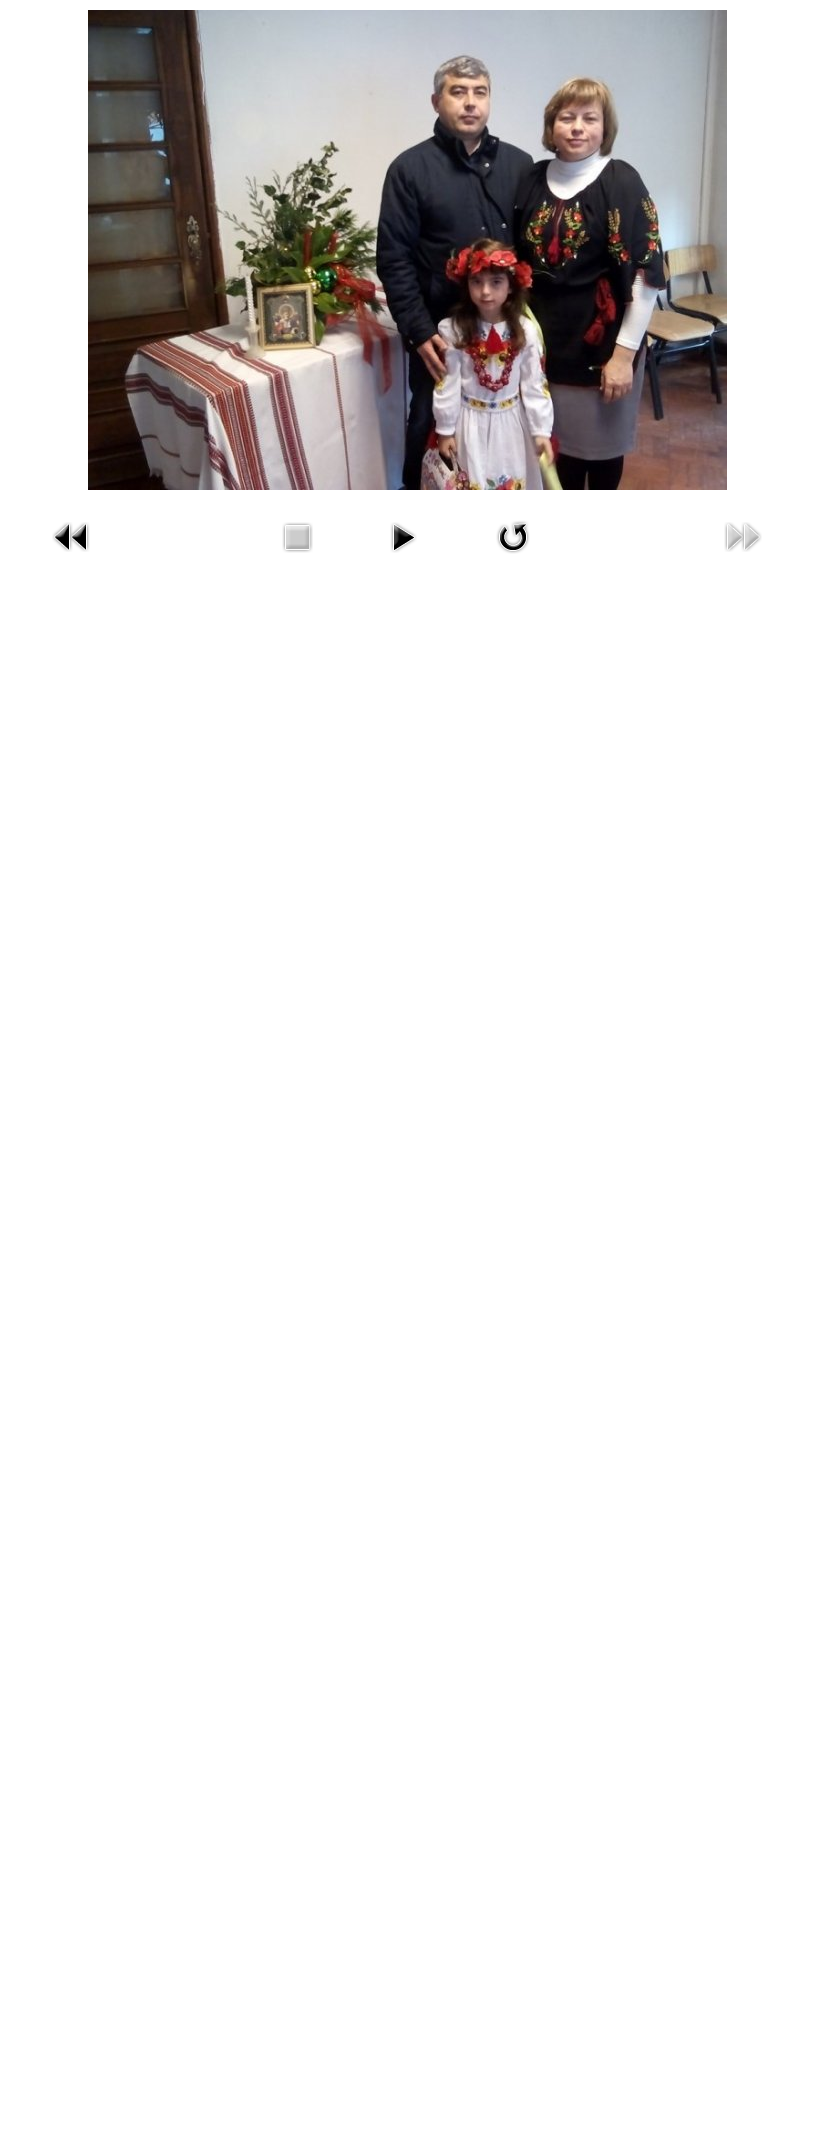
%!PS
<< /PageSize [815 2134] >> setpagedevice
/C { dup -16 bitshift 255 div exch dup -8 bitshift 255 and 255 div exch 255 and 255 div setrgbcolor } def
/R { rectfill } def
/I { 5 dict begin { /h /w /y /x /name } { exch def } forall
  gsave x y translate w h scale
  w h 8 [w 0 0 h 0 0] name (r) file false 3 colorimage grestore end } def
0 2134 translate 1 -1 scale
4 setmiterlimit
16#FFFFFF C
0 0 815 2134 R
(1.rgb) 88 10 639 480 I
(2.rgb) 52 522 38 30 I
(3.rgb) 282 522 31 31 I
(4.rgb) 390 522 27 31 I
(5.rgb) 496 520 34 34 I
(6.rgb) 724 522 38 30 I
showpage
